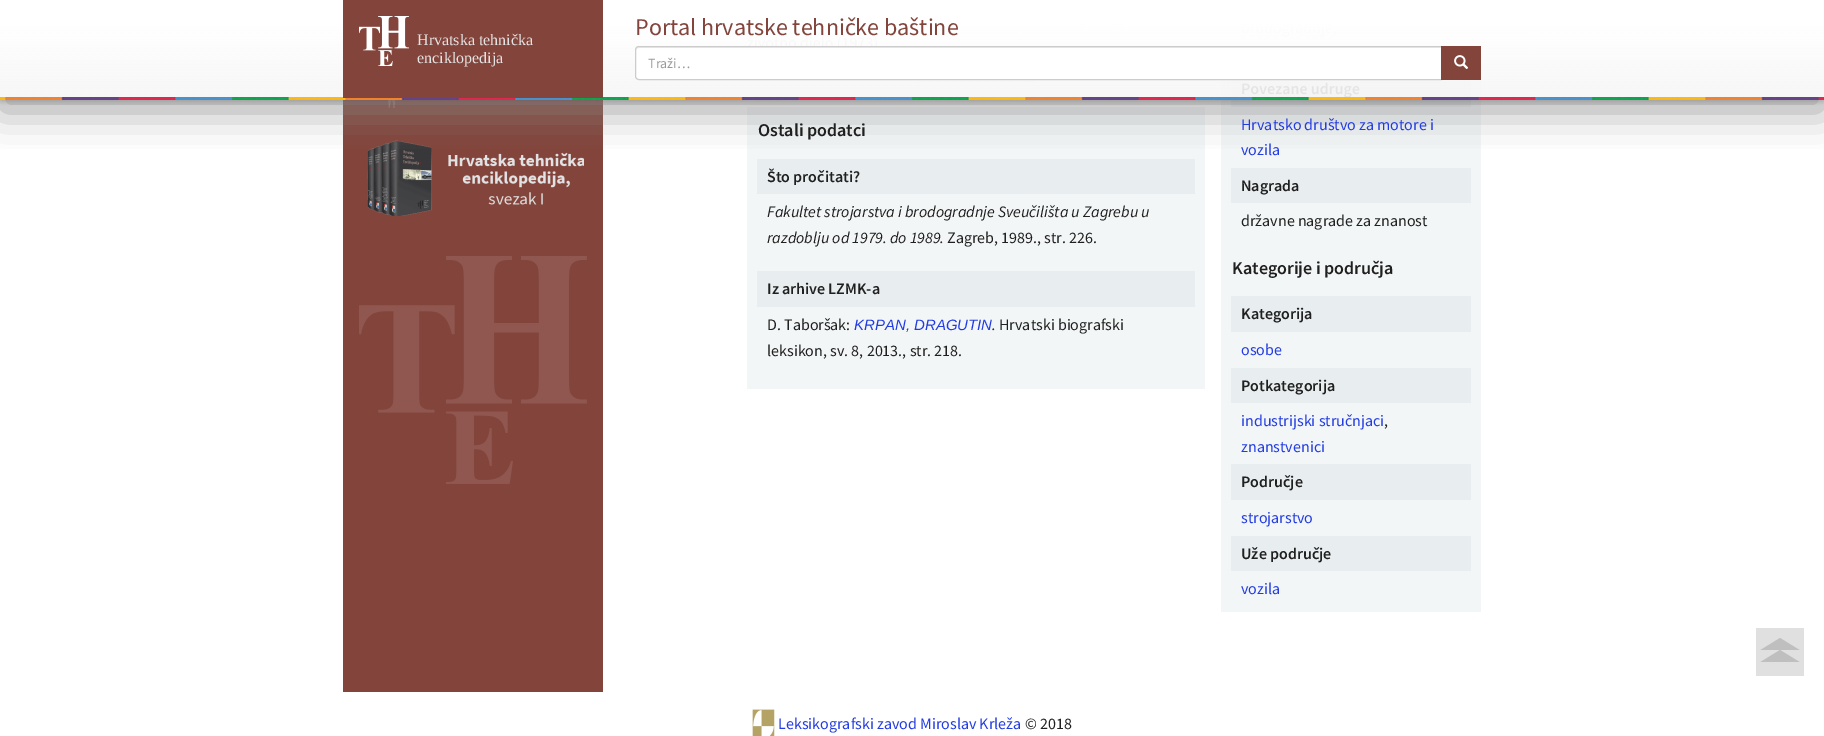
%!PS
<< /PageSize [1824 736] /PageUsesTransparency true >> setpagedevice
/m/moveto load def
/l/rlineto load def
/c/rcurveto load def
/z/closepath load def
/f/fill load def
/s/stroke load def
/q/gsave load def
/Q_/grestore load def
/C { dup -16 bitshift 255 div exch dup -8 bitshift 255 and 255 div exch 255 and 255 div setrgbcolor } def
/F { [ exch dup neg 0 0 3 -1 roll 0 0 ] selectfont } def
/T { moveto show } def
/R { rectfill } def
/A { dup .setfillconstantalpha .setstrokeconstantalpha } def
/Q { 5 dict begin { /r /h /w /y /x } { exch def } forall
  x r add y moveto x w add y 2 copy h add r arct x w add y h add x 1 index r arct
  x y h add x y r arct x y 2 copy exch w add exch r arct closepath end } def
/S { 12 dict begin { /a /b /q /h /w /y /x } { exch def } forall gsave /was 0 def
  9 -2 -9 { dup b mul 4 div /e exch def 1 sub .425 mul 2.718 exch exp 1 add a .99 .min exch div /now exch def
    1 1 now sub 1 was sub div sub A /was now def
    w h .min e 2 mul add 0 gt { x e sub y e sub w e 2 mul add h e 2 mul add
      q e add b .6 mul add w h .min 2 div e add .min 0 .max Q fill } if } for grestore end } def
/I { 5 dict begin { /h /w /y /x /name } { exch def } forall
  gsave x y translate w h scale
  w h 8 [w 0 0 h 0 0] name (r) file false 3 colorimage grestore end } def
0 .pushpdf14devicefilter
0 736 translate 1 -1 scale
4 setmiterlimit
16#FFFFFF C
0 0 1824 736 R
16#82443B C
343 100 260 592 R
(4.rgb) 388 100 10 8 I
16#F3F6F7 C
747 107 458 282 R
1221 28 260 584 R
16#E8EDEF C
1231 80 240 27 R
q
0 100 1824 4 rectclip
16#000000 C
1 3 1822 98 0 2 .2 S
Q_
q
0 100 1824 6 rectclip
16#000000 C
0 1 1824 100 0 5 .12 S
Q_
q 444 131 m 58 0 l 0 1 l -58 0 l z clip newpath 473 132 translate 184 .7 scale
<< /ShadingType 3 /ColorSpace /DeviceRGB /Coords [0 0 0 0 0 1] /Extend [true true] /Function << /FunctionType 3 /Domain [0 1] /Functions [<< /FunctionType 2 /Domain [0 1] /C0 [.757 .635 .616] /C1 [.51 .267 .231] /N 1 >> << /FunctionType 2 /Domain [0 1] /C0 [.51 .267 .231] /C1 [.51 .267 .231] /N 1 >>] /Bounds [.75] /Encode [0 1 0 1] >> >> shfill Q_
(5.rgb) 367 140 65 76 I
(6.rgb) 448 152 136 53 I
757 159 438 35 R
1231 168 240 35 R
q
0 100 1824 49 rectclip
16#888888 C
0 10 1824 100 0 20 .8 S
Q_
(1.rgb) 0 0 1824 100 I
16#82443B C
343 0 260 98 R
(2.rgb) 359 16 50 50 I
/LiberationSerif-Regular 16 F
16#E3E3E3 C
(Hrvatska tehnička) 417 45 T
(enciklopedija) 417 63 T
/SourceSansPro-Regular 24 F
16#82443B C
(Portal hrvatske tehničke baštine) 635 35 T
16#FFFFFF C
639 46 m 803 0 l 0 34 l -803 0 l -2 0 -4 -2 -4 -4 c 0 -26 l 0 -2 2 -4 4 -4 c z f
16#ECECEC C
639 48 m 802 0 l 0 -1 l -802 0 l -2 0 -3 2 -3 4 c 0 -2 1 -3 3 -3 c z f
16#CCCCCC C
639 46.5 m 802.5 0 l 0 33 l -802.5 0 l -2 0 -3.5 -1.5 -3.5 -3.5 c 0 -26 l 0 -2 1.5 -3.5 3.5 -3.5 c z s
/SourceSansPro-Regular 14 F
16#999999 C
(Traži…) 648 68 T
16#82443B C
1441 46 40 34 R
(3.rgb) 1454 55 15 14 I
(7.rgb) 359 256 228 228 I
/SourceSansPro-SemiBold 18 F
16#202020 C
(Ostali podatci) 758 136 T
/SourceSansPro-SemiBold 16 F
(Što pročitati?) 767 182 T
/SourceSansPro-Italic 16 F
(Fakultet strojarstva i brodogradnje Sveučilišta u Zagrebu u) 767 217 T
(razdoblju od 1979. do 1989.) 767 243 T
/SourceSansPro-Regular 16 F
(Zagreb, 1989., str. 226.) 947 243 T
16#E8EDEF C
757 271 438 36 R
/SourceSansPro-SemiBold 16 F
16#202020 C
(Iz arhive LZMK-a) 767 294 T
/SourceSansPro-Regular 16 F
(D. Taboršak:) 767 330 T
/LiberationSans-Italic 15 F
16#233CE1 C
(KRPAN, DRAGUTIN) 854 330 T
/SourceSansPro-Italic 16 F
16#202020 C
(.) 992 330 T
/SourceSansPro-Regular 16 F
(Hrvatski biografski) 999 330 T
(leksikon, sv. 8, 2013., str. 218.) 767 356 T
16#233CE1 C
(Hrvatsko društvo za motore i) 1241 130 T
(vozila) 1241 155 T
/SourceSansPro-SemiBold 16 F
16#202020 C
(Nagrada) 1241 191 T
/SourceSansPro-Regular 16 F
(državne nagrade za znanost) 1241 226 T
q 1319 244 m 64 0 l 0 1 l -64 0 l z clip newpath 1351 245 translate 184 .7 scale
<< /ShadingType 3 /ColorSpace /DeviceRGB /Coords [0 0 0 0 0 1] /Extend [true true] /Function << /FunctionType 3 /Domain [0 1] /Functions [<< /FunctionType 2 /Domain [0 1] /C0 [.478 .635 .675] /C1 [.953 .965 .969] /N 1 >> << /FunctionType 2 /Domain [0 1] /C0 [.953 .965 .969] /C1 [.953 .965 .969] /N 1 >>] /Bounds [.75] /Encode [0 1 0 1] >> >> shfill Q_
/SourceSansPro-SemiBold 18 F
(Kategorije i područja) 1232 274 T
16#E8EDEF C
1231 296 240 36 R
/SourceSansPro-SemiBold 16 F
16#202020 C
(Kategorija) 1241 319 T
/SourceSansPro-Regular 16 F
16#233CE1 C
(osobe) 1241 355 T
16#E8EDEF C
1231 368 240 35 R
/SourceSansPro-SemiBold 16 F
16#202020 C
(Potkategorija) 1241 391 T
/SourceSansPro-Regular 16 F
16#233CE1 C
(industrijski stručnjaci) 1241 426 T
16#202020 C
(,) 1384 426 T
16#233CE1 C
(znanstvenici) 1241 452 T
16#E8EDEF C
1231 464 240 36 R
/SourceSansPro-SemiBold 16 F
16#202020 C
(Područje) 1241 487 T
/SourceSansPro-Regular 16 F
16#233CE1 C
(strojarstvo) 1241 523 T
16#E8EDEF C
1231 536 240 35 R
/SourceSansPro-SemiBold 16 F
16#202020 C
(Uže područje) 1241 559 T
/SourceSansPro-Regular 16 F
16#233CE1 C
(vozila) 1241 594 T
q 688 692 m 448 0 l 0 1 l -448 0 l z clip newpath 912 693 translate 1290 .7 scale
<< /ShadingType 3 /ColorSpace /DeviceRGB /Coords [0 0 0 0 0 1] /Extend [true true] /Function << /FunctionType 3 /Domain [0 1] /Functions [<< /FunctionType 2 /Domain [0 1] /C0 [.502 .651 .69] /C1 [1 1 1] /N 1 >> << /FunctionType 2 /Domain [0 1] /C0 [1 1 1] /C1 [1 1 1] /N 1 >>] /Bounds [.75] /Encode [0 1 0 1] >> >> shfill Q_
16#E0E0E0 C
1756 628 48 48 R
16#BFBFBF C
1780 650 m 19.5 12 l -39 0 l z 1780 638 m 19.5 12 l -39 0 l z eofill
(8.rgb) 752 709 23 27 I
16#233CE1 C
(Leksikografski zavod Miroslav Krleža) 778 729 T
16#202020 C
(© 2018) 1025 729 T
.poppdf14devicefilter showpage
